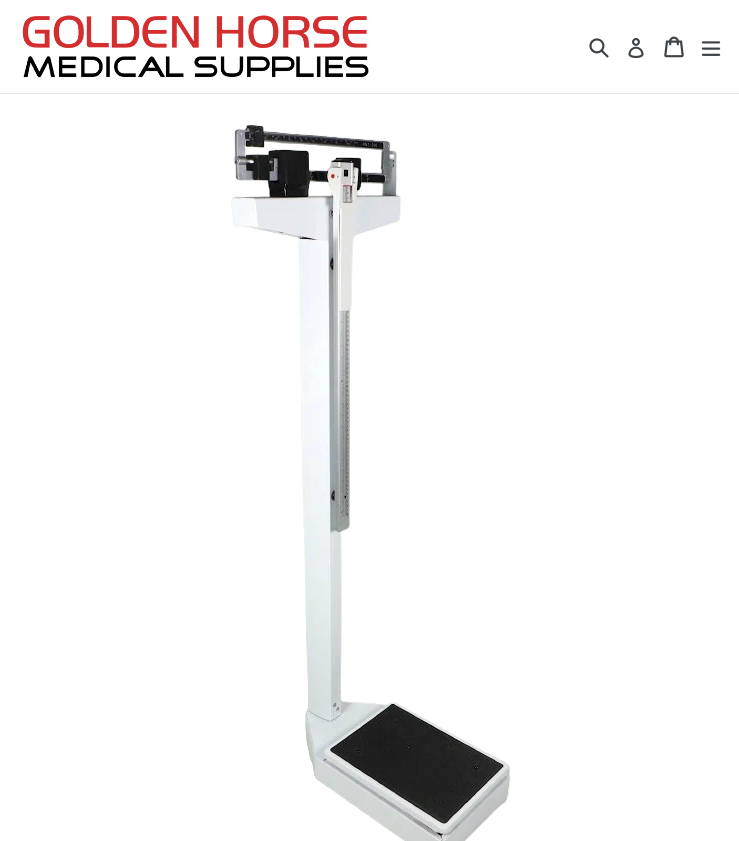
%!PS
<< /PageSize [739 841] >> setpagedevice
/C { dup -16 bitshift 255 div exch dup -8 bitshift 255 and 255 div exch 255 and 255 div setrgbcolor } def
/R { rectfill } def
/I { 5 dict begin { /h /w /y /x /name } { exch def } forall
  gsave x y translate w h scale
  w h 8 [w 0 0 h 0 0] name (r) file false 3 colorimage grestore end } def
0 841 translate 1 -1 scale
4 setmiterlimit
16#FFFFFF C
0 0 739 841 R
16#E8E9EB C
0 93 739 1 R
(1.rgb) 22 15 347 63 I
(2.rgb) 589 38 20 20 I
(3.rgb) 628 38 16 20 I
(4.rgb) 664 36 20 22 I
(5.rgb) 701 41 20 15 I
(6.rgb) 231 124 280 717 I
showpage
